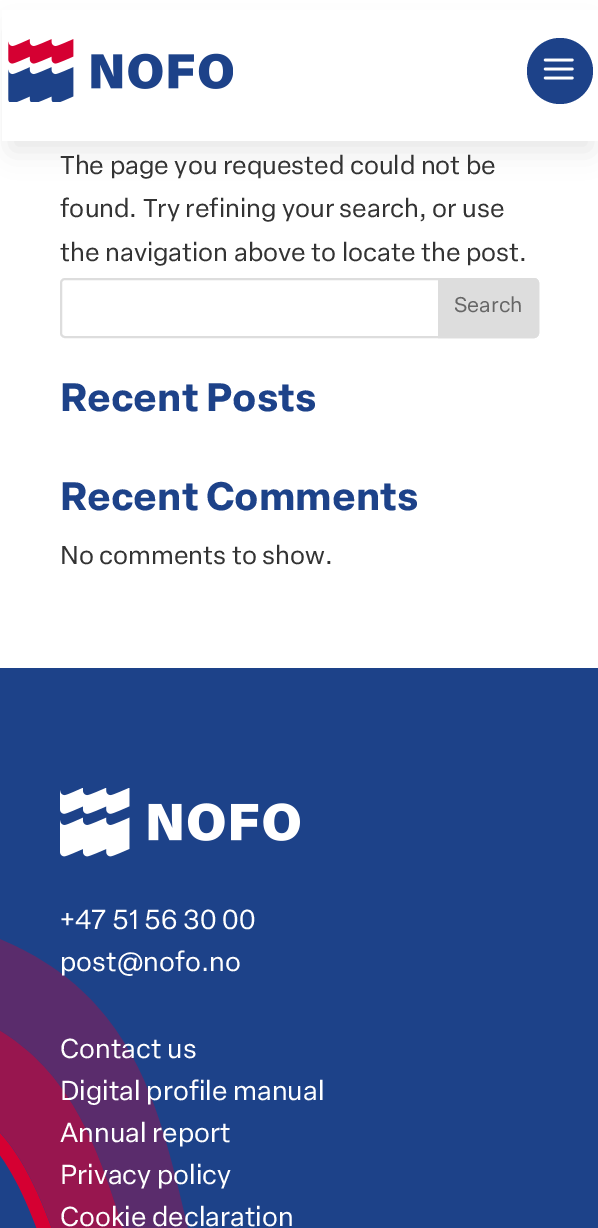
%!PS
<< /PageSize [598 1228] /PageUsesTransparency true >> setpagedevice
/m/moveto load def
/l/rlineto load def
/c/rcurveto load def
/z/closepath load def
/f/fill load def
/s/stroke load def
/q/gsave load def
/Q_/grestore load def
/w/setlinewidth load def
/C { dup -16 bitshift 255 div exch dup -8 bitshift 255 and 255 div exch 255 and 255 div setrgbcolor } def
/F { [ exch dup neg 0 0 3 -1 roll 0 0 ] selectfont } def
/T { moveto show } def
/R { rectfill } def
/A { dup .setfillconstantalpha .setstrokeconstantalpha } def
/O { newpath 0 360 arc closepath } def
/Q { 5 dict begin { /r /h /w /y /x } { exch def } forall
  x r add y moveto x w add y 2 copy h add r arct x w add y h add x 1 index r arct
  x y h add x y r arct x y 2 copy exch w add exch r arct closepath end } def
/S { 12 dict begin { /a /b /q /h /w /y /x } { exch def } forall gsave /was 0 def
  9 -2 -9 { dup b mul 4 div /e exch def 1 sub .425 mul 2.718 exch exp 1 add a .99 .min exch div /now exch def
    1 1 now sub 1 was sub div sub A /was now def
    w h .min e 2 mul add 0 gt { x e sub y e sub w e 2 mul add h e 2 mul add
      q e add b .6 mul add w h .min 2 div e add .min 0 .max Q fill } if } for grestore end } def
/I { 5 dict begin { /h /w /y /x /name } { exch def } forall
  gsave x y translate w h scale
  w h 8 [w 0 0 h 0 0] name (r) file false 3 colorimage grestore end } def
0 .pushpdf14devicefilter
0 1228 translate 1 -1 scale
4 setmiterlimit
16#FFFFFF C
0 0 598 1228 R
16#000000 C
11 27 580 123 0 13.5 .1 S
16#FFFFFF C
2 10 596 131 R
(1.rgb) 8 39 225 63 I
16#1D4289 C
560 71 33 O f
(2.rgb) 543 58 31 22 I
/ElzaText-Regular 25.5 F
16#333333 C
(The page you requested could not be) 60 174 T
(found. Try refining your search, or use) 60 217 T
(the navigation above to locate the post.) 60 261 T
16#DDDDDD C
2 w
61 279 477 58 4 Q s
439 279 m 95 0 l 2 0 4 2 4 4 c 0 50 l 0 2 -2 4 -4 4 c -95 0 l z q f Q_
s
/ElzaText-Regular 21 F
16#666666 C
(Search) 454 312 T
/ElzaText-Bold 39 F
16#1D4289 C
(Recent Posts) 60 411 T
(Recent Comments) 60 510 T
/ElzaText-Regular 25.5 F
16#333333 C
(No comments to show.) 60 564 T
16#1D4289 C
0 668 598 560 R
(3.rgb) 0 939 188 289 I
(4.rgb) 60 788 240 69 I
/ElzaText-Regular 27 F
16#FFFFFF C
(+47 51 56 30 00) 60 929 T
(post@nofo.no) 60 971 T
(Contact us) 60 1058 T
(Digital profile manual) 60 1100 T
(Annual report) 60 1142 T
(Privacy policy) 60 1184 T
(Cookie declaration) 60 1226 T
.poppdf14devicefilter showpage
